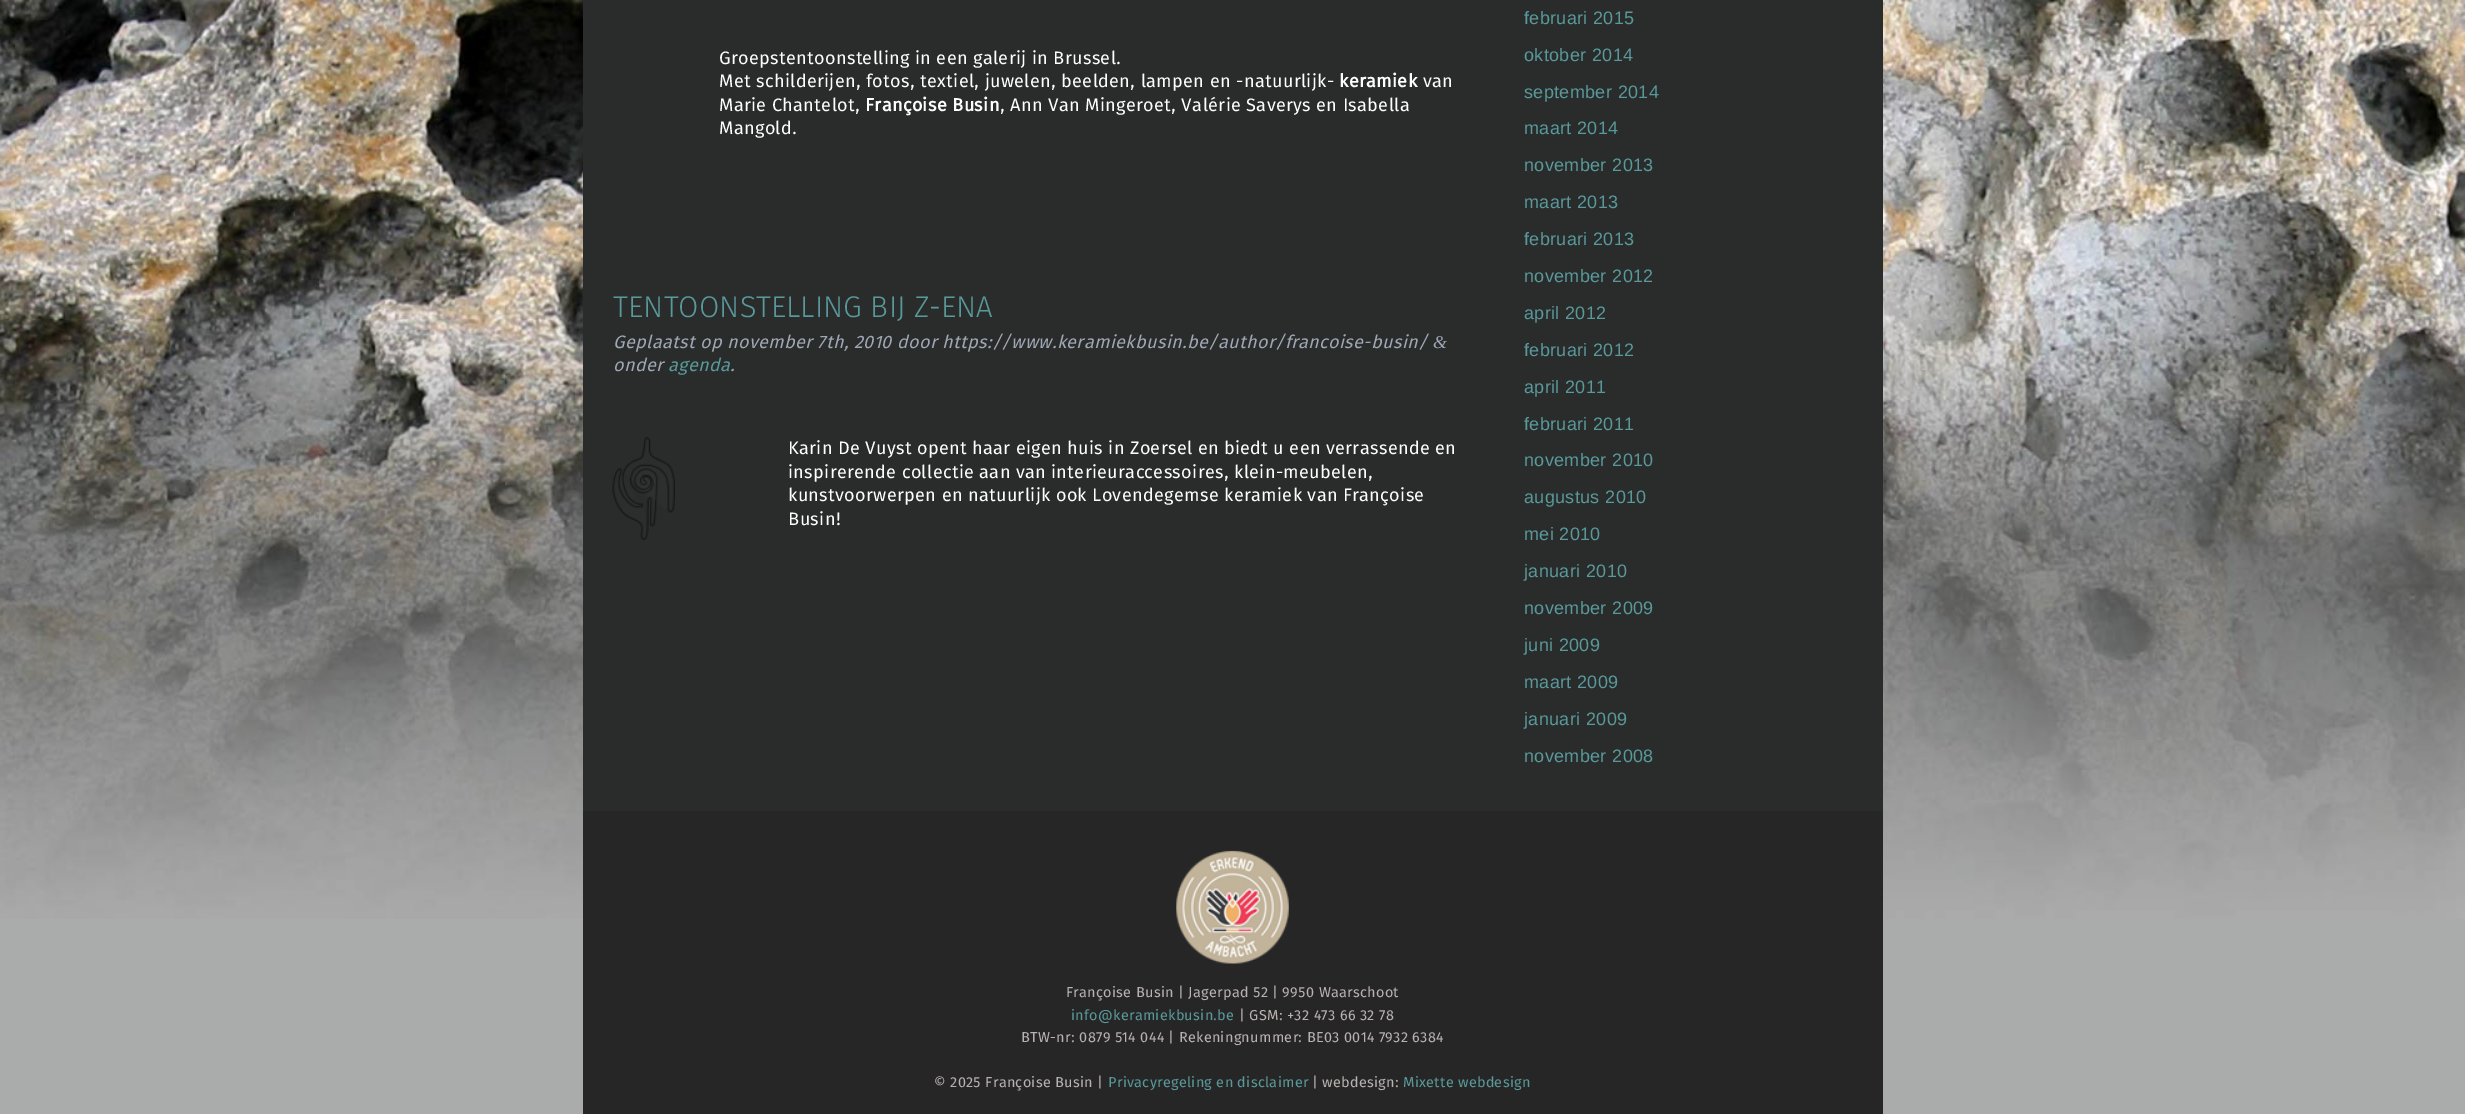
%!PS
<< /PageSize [2465 1114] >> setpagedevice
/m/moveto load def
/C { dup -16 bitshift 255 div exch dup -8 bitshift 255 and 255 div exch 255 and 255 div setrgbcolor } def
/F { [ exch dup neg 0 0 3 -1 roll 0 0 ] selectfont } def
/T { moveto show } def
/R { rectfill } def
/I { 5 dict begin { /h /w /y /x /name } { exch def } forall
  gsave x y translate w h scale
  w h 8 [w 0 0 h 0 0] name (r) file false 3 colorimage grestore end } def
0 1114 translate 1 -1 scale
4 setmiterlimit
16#AAABAB C
0 0 2465 1114 R
(1.rgb) 0 0 2465 919 I
16#2A2C2B C
583 0 1300 811 R
/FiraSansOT-Regular 18 F
16#FFFFFF C
719 64 m .35 0 (Groepstentoonstelling in een galerij in Brussel.) ashow
719 87 m .35 0 (Met schilderijen, fotos, textiel, juwelen, beelden, lampen) ashow
1210 87 m .35 0 (en -natuurlijk-) ashow
/FiraSansOT-Bold 18 F
1339 87 m .35 0 (keramiek) ashow
/FiraSansOT-Regular 18 F
1423 87 m .35 0 (van) ashow
719 111 m .35 0 (Marie Chantelot,) ashow
/FiraSansOT-Bold 18 F
865 111 m .35 0 (Françoise Busin) ashow
/FiraSansOT-Regular 18 F
1000 111 m .35 0 (, Ann Van Mingeroet, Valérie Saverys en Isabella) ashow
719 134 m .35 0 (Mangold.) ashow
/FiraSansOT-Light 30 F
16#59999B C
(TENTOONSTELLING BIJ Z-ENA) 613 317 T
/FiraSansOT-Italic 18 F
16#9FA6B4 C
613 348 m .35 0 (Geplaatst op november 7th, 2010 door https://www.keramiekbusin.be/author/francoise-busin/) ashow
/LiberationSerif-Italic 18 F
1433 348 m .35 0 (&) ashow
/FiraSansOT-Italic 18 F
613 371 m .35 0 (onder) ashow
16#59999B C
668 371 m .35 0 (agenda) ashow
16#9FA6B4 C
730 371 m .35 0 (.) ashow
(2.rgb) 612 437 63 103 I
/FiraSansOT-Regular 18 F
16#FFFFFF C
788 454 m .35 0 (Karin De Vuyst opent haar eigen huis in Zoersel en biedt u een verrassende en) ashow
788 478 m .35 0 (inspirerende collectie aan van interieuraccessoires, klein-meubelen,) ashow
788 501 m .35 0 (kunstvoorwerpen en natuurlijk ook Lovendegemse keramiek van Françoise) ashow
788 525 m .35 0 (Busin!) ashow
/LiberationSans-Regular 18 F
16#59999B C
1524 24 m .35 0 (februari 2015) ashow
1524 61 m .35 0 (oktober 2014) ashow
1524 98 m .35 0 (september 2014) ashow
1524 134 m .35 0 (maart 2014) ashow
1524 171 m .35 0 (november 2013) ashow
1524 208 m .35 0 (maart 2013) ashow
1524 245 m .35 0 (februari 2013) ashow
1524 282 m .35 0 (november 2012) ashow
1524 319 m .35 0 (april 2012) ashow
1524 356 m .35 0 (februari 2012) ashow
1524 393 m .35 0 (april 2011) ashow
1524 430 m .35 0 (februari 2011) ashow
1524 466 m .35 0 (november 2010) ashow
1524 503 m .35 0 (augustus 2010) ashow
1524 540 m .35 0 (mei 2010) ashow
1524 577 m .35 0 (januari 2010) ashow
1524 614 m .35 0 (november 2009) ashow
1524 651 m .35 0 (juni 2009) ashow
1524 688 m .35 0 (maart 2009) ashow
1524 725 m .35 0 (januari 2009) ashow
1524 762 m .35 0 (november 2008) ashow
16#272626 C
583 811 1300 303 R
(3.rgb) 1176 850 113 114 I
/FiraSansOT-Regular 14.4 F
16#B8B2B2 C
1066 997 m .3 0 (Françoise Busin | Jagerpad 52 | 9950 Waarschoot) ashow
16#59999B C
1071 1020 m .3 0 (info@keramiekbusin.be) ashow
16#B8B2B2 C
1239 1020 m .3 0 (| GSM: +32 473 66 32 78) ashow
1021 1042 m .3 0 (BTW-nr: 0879 514 044 | Rekeningnummer: BE03 0014 7932 6384) ashow
934 1087 m .3 0 (© 2025 Françoise Busin |) ashow
16#59999B C
1108 1087 m .3 0 (Privacyregeling en disclaimer) ashow
16#B8B2B2 C
1312 1087 m .3 0 (| webdesign:) ashow
16#59999B C
1403 1087 m .3 0 (Mixette webdesign) ashow
showpage
